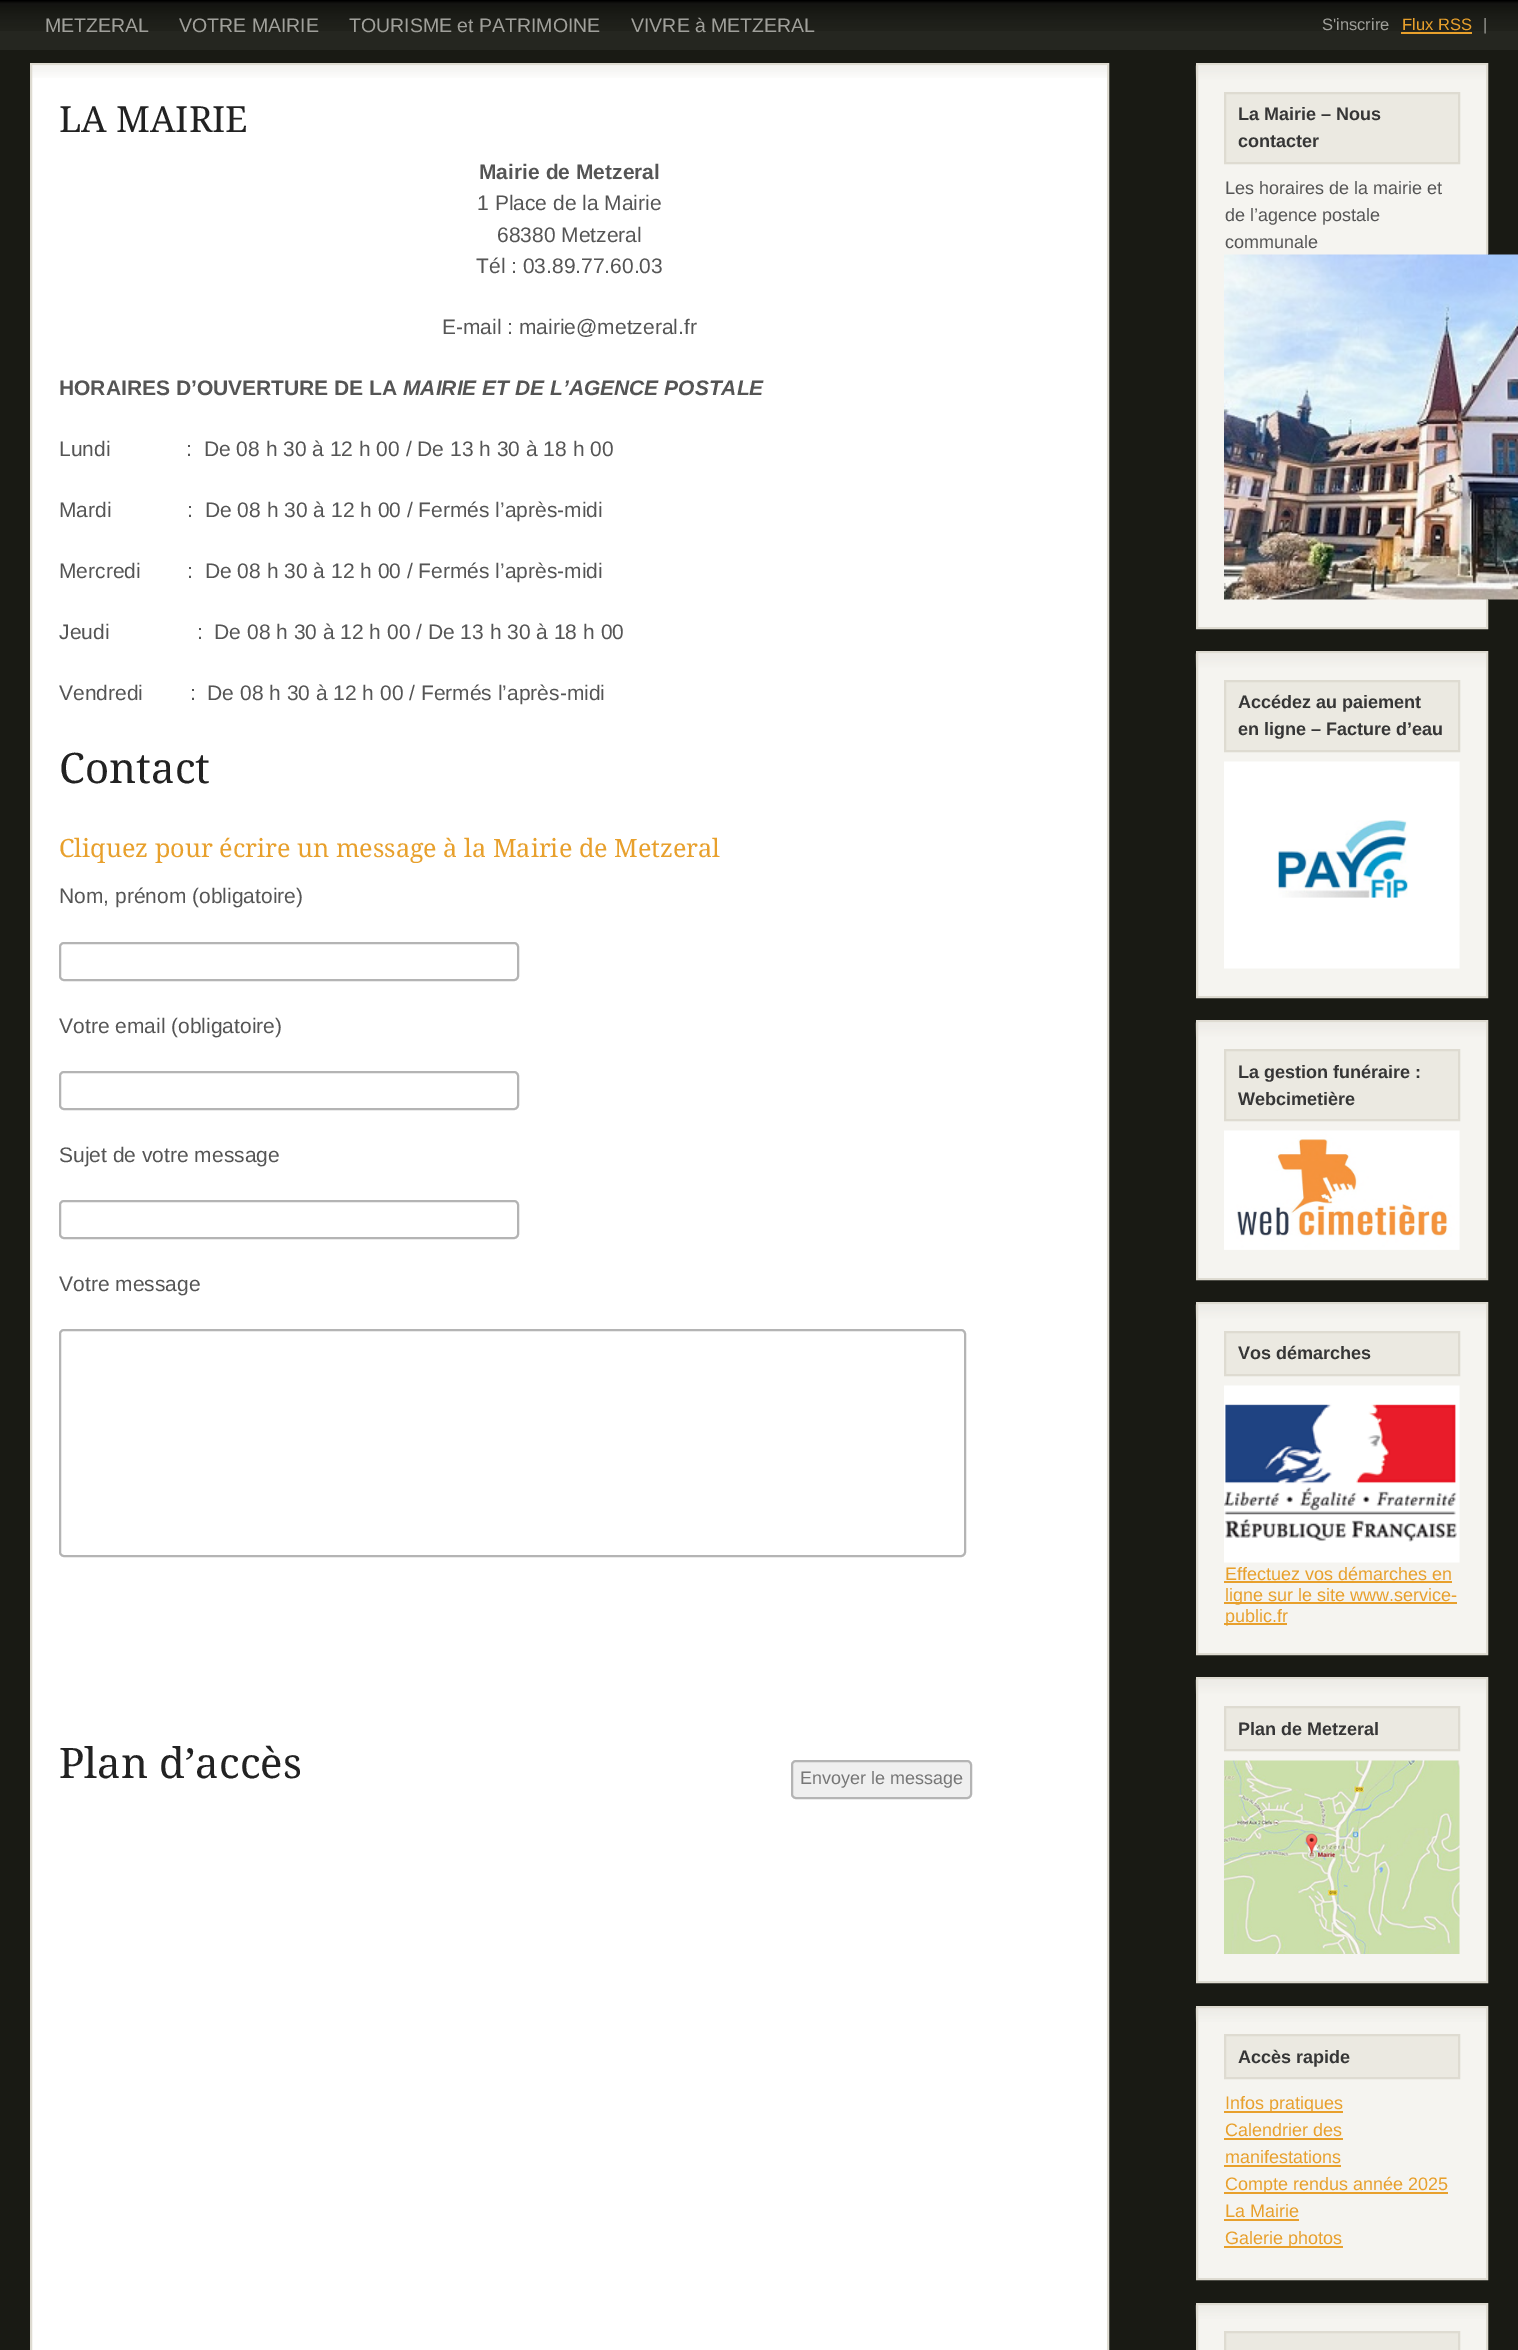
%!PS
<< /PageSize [1518 2350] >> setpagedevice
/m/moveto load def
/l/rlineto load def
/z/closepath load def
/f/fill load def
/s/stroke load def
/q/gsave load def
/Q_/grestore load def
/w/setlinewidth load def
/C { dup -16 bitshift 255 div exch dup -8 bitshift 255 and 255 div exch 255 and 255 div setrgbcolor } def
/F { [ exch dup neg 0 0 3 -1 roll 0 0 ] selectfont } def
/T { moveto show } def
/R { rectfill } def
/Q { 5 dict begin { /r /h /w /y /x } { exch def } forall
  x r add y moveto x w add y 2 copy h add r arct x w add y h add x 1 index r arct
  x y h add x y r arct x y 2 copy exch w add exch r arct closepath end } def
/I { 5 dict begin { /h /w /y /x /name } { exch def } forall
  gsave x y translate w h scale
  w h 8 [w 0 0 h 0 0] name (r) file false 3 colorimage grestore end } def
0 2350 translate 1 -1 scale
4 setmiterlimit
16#191A14 C
0 0 1518 2350 R
16#252620 C
0 31 1518 19 R
(1.rgb) 0 0 1518 31 I
/LiberationSans-Regular 19.5 F
16#A0A09B C
(METZERAL) 45 32 T
(VOTRE MAIRIE) 179 32 T
(TOURISME et PATRIMOINE) 349 32 T
(VIVRE à METZERAL) 631 32 T
/LiberationSans-Regular 16.5 F
(S'inscrire) 1322 30 T
16#E8A02C C
(Flux RSS) 1402 30 T
1401 32 71 2 R
16#A0A09B C
(|) 1483 30 T
16#FFFFFF C
32 65 1075 2285 R
(2.rgb) 32 65 1075 13 I
16#DEDBD1 C
2 w
31 64 1077 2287 rectstroke
/DroidSerif-Regular 36 F
16#222222 C
(LA MAIRIE) 59 132 T
/LiberationSans-Bold 21 F
16#555555 C
(Mairie de Metzeral) 479 179 T
/LiberationSans-Regular 21 F
(1 Place de la Mairie) 477 210 T
(68380 Metzeral) 497 242 T
(Tél : 03.89.77.60.03) 476 273 T
(E-mail : mairie@metzeral.fr) 442 334 T
/LiberationSans-Bold 21 F
(HORAIRES D’OUVERTURE DE LA) 59 395 T
/LiberationSans-BoldItalic 21 F
(MAIRIE ET DE L’AGENCE POSTALE) 403 395 T
/LiberationSans-Regular 21 F
(Lundi             :  De 08 h 30 à 12 h 00 / De 13 h 30 à 18 h 00) 59 456 T
(Mardi             :  De 08 h 30 à 12 h 00 / Fermés l’après-midi) 59 517 T
(Mercredi        :  De 08 h 30 à 12 h 00 / Fermés l’après-midi) 59 578 T
(Jeudi               :  De 08 h 30 à 12 h 00 / De 13 h 30 à 18 h 00) 59 639 T
(Vendredi        :  De 08 h 30 à 12 h 00 / Fermés l’après-midi) 59 700 T
/DroidSerif-Regular 42 F
16#222222 C
(Contact) 59 783 T
/DroidSerif-Regular 25.2 F
16#E8A02C C
(Cliquez pour écrire un message à la Mairie de Metzeral) 59 857 T
/LiberationSans-Regular 21 F
16#555555 C
(Nom, prénom \(obligatoire\)) 59 903 T
16#B4B4B4 C
60 943 458 37 4 Q s
16#555555 C
(Votre email \(obligatoire\)) 59 1033 T
16#B4B4B4 C
60 1072 458 37 4 Q s
16#555555 C
(Sujet de votre message) 59 1162 T
16#B4B4B4 C
60 1201 458 37 4 Q s
16#555555 C
(Votre message) 59 1291 T
16#B4B4B4 C
60 1330 905 226 4 Q s
16#EFEFEF C
792 1761 179 37 4 Q q f Q_
16#B4B4B4 C
s
/LiberationSans-Regular 18 F
16#777777 C
(Envoyer le message) 800 1784 T
/DroidSerif-Regular 42 F
16#222222 C
(Plan d’accès) 59 1778 T
16#F5F4F0 C
1198 65 288 562 R
(3.rgb) 1195 65 291 15 I
16#DEDBD1 C
1197 64 290 564 rectstroke
16#EBE9E1 C
1225 93 m 234 0 l 0 70 l -234 0 l z q f Q_
16#DEDBD1 C
s
/LiberationSans-Bold 18 F
16#363636 C
(La Mairie – Nous) 1238 120 T
(contacter) 1238 147 T
/LiberationSans-Regular 18 F
16#555555 C
(Les horaires de la mairie et) 1225 194 T
(de l’agence postale) 1225 221 T
(communale) 1225 248 T
(4.rgb) 1224 254 294 346 I
16#F5F4F0 C
1198 653 288 343 R
(3.rgb) 1195 653 291 15 I
16#DEDBD1 C
1197 652 290 345 rectstroke
16#EBE9E1 C
1225 681 m 234 0 l 0 70 l -234 0 l z q f Q_
16#DEDBD1 C
s
/LiberationSans-Bold 18 F
16#363636 C
(Accédez au paiement) 1238 708 T
(en ligne – Facture d’eau) 1238 735 T
(5.rgb) 1224 761 236 208 I
16#F5F4F0 C
1198 1022 288 256 R
(3.rgb) 1195 1022 291 15 I
16#DEDBD1 C
1197 1021 290 258 rectstroke
16#EBE9E1 C
1225 1050 m 234 0 l 0 70 l -234 0 l z q f Q_
16#DEDBD1 C
s
16#363636 C
(La gestion funéraire :) 1238 1078 T
(Webcimetière) 1238 1105 T
(6.rgb) 1224 1130 236 120 I
16#F5F4F0 C
1198 1304 288 349 R
(3.rgb) 1195 1304 291 15 I
16#DEDBD1 C
1197 1303 290 351 rectstroke
16#EBE9E1 C
1225 1332 m 234 0 l 0 43 l -234 0 l z q f Q_
16#DEDBD1 C
s
16#363636 C
(Vos démarches) 1238 1359 T
(7.rgb) 1224 1385 236 178 I
/LiberationSans-Regular 18 F
16#E8A02C C
(Effectuez vos démarches en) 1225 1580 T
1224 1581 228 2 R
1224 1602 233 2 R
(ligne sur le site www.service-) 1225 1601 T
1224 1623 63 2 R
(public.fr) 1225 1622 T
16#F5F4F0 C
1198 1679 288 302 R
(3.rgb) 1195 1679 291 15 I
16#DEDBD1 C
1197 1678 290 304 rectstroke
16#EBE9E1 C
1225 1707 m 234 0 l 0 43 l -234 0 l z q f Q_
16#DEDBD1 C
s
/LiberationSans-Bold 18 F
16#363636 C
(Plan de Metzeral) 1238 1735 T
(8.rgb) 1224 1760 236 194 I
16#F5F4F0 C
1198 2008 288 270 R
(9.rgb) 1195 2008 291 14 I
16#DEDBD1 C
1197 2007 290 272 rectstroke
16#EBE9E1 C
1225 2035 m 234 0 l 0 43 l -234 0 l z q f Q_
16#DEDBD1 C
s
16#363636 C
(Accès rapide) 1238 2063 T
16#E8A02C C
1224 2111 119 2 R
/LiberationSans-Regular 18 F
(Infos pratiques) 1225 2109 T
(Calendrier des) 1225 2136 T
1224 2138 119 2 R
(manifestations) 1225 2163 T
1224 2165 117 2 R
1224 2192 224 2 R
(Compte rendus année 2025) 1225 2190 T
(La Mairie) 1225 2217 T
1224 2219 75 2 R
1224 2246 119 2 R
(Galerie photos) 1225 2244 T
16#F5F4F0 C
1198 2305 288 45 R
(9.rgb) 1195 2305 291 14 I
16#DEDBD1 C
1197 2304 290 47 rectstroke
16#EBE9E1 C
1225 2332 m 234 0 l 0 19 l -234 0 l z q f Q_
16#DEDBD1 C
s
showpage
